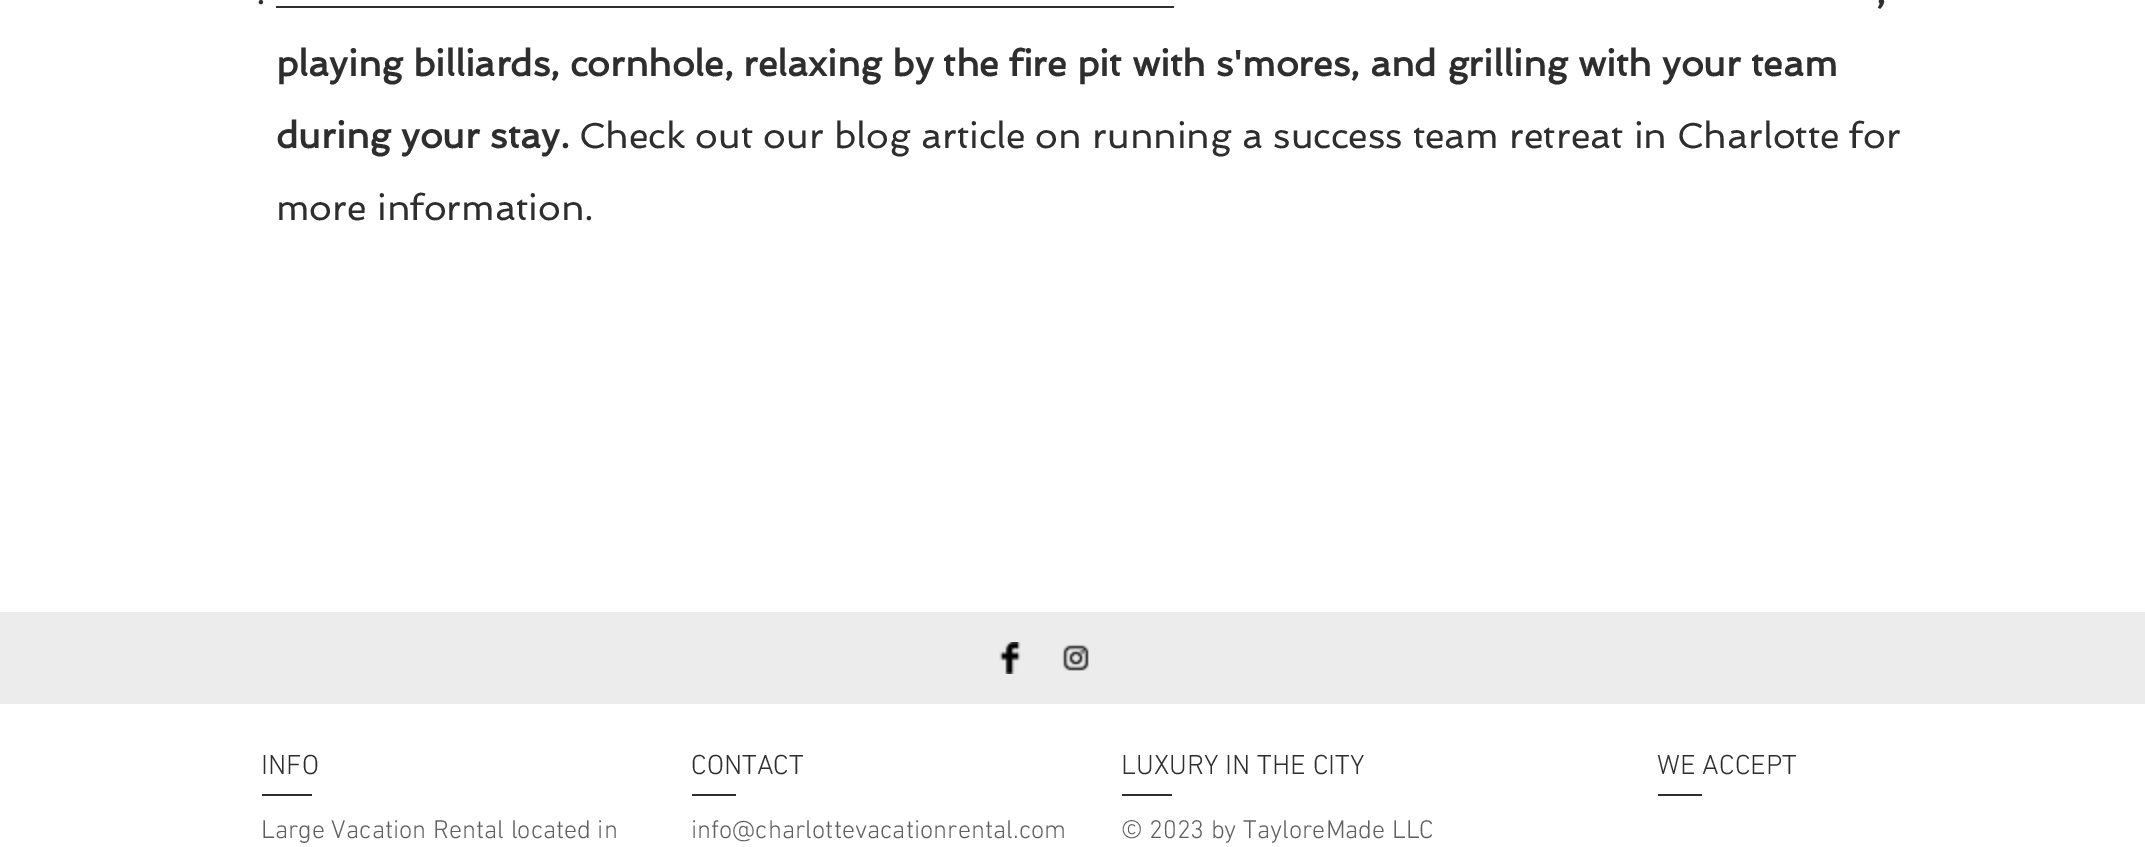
%!PS
<< /PageSize [2145 847] >> setpagedevice
/C { dup -16 bitshift 255 div exch dup -8 bitshift 255 and 255 div exch 255 and 255 div setrgbcolor } def
/F { [ exch dup neg 0 0 3 -1 roll 0 0 ] selectfont } def
/T { moveto show } def
/R { rectfill } def
/I { 5 dict begin { /h /w /y /x /name } { exch def } forall
  gsave x y translate w h scale
  w h 8 [w 0 0 h 0 0] name (r) file false 3 colorimage grestore end } def
0 847 translate 1 -1 scale
4 setmiterlimit
16#FFFFFF C
0 0 2145 847 R
/Spinnaker-Regular 36 F
16#2F2E2E C
(.) 256 4 T
/Spinnaker-Bold 36 F
(,) 1876 4 T
(playing billiards, cornhole, relaxing by the fire pit with s'mores, and grilling with your team) 276 76 T
276 6 898 2 R
(during your stay.) 276 148 T
/Spinnaker-Regular 36 F
(Check out our blog article on running a success team retreat in Charlotte for) 579 148 T
(more information.) 276 220 T
16#ECECEC C
0 612 2145 92 R
(1.rgb) 999 642 22 32 I
(2.rgb) 1062 644 27 27 I
/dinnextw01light-Light 28 F
16#2F2E2E C
(INFO) 261 774 T
(CONTACT) 691 774 T
(LUXURY IN THE CITY) 1121 774 T
(WE ACCEPT) 1657 774 T
262 794 50 2 R
692 794 44 2 R
1122 794 50 2 R
1658 794 44 2 R
/dinnextw01light-Light 26 F
16#605E5E C
(Large Vacation Rental located in) 261 838 T
(info@charlottevacationrental.com) 691 838 T
(© 2023 by TayloreMade LLC) 1121 838 T
showpage
